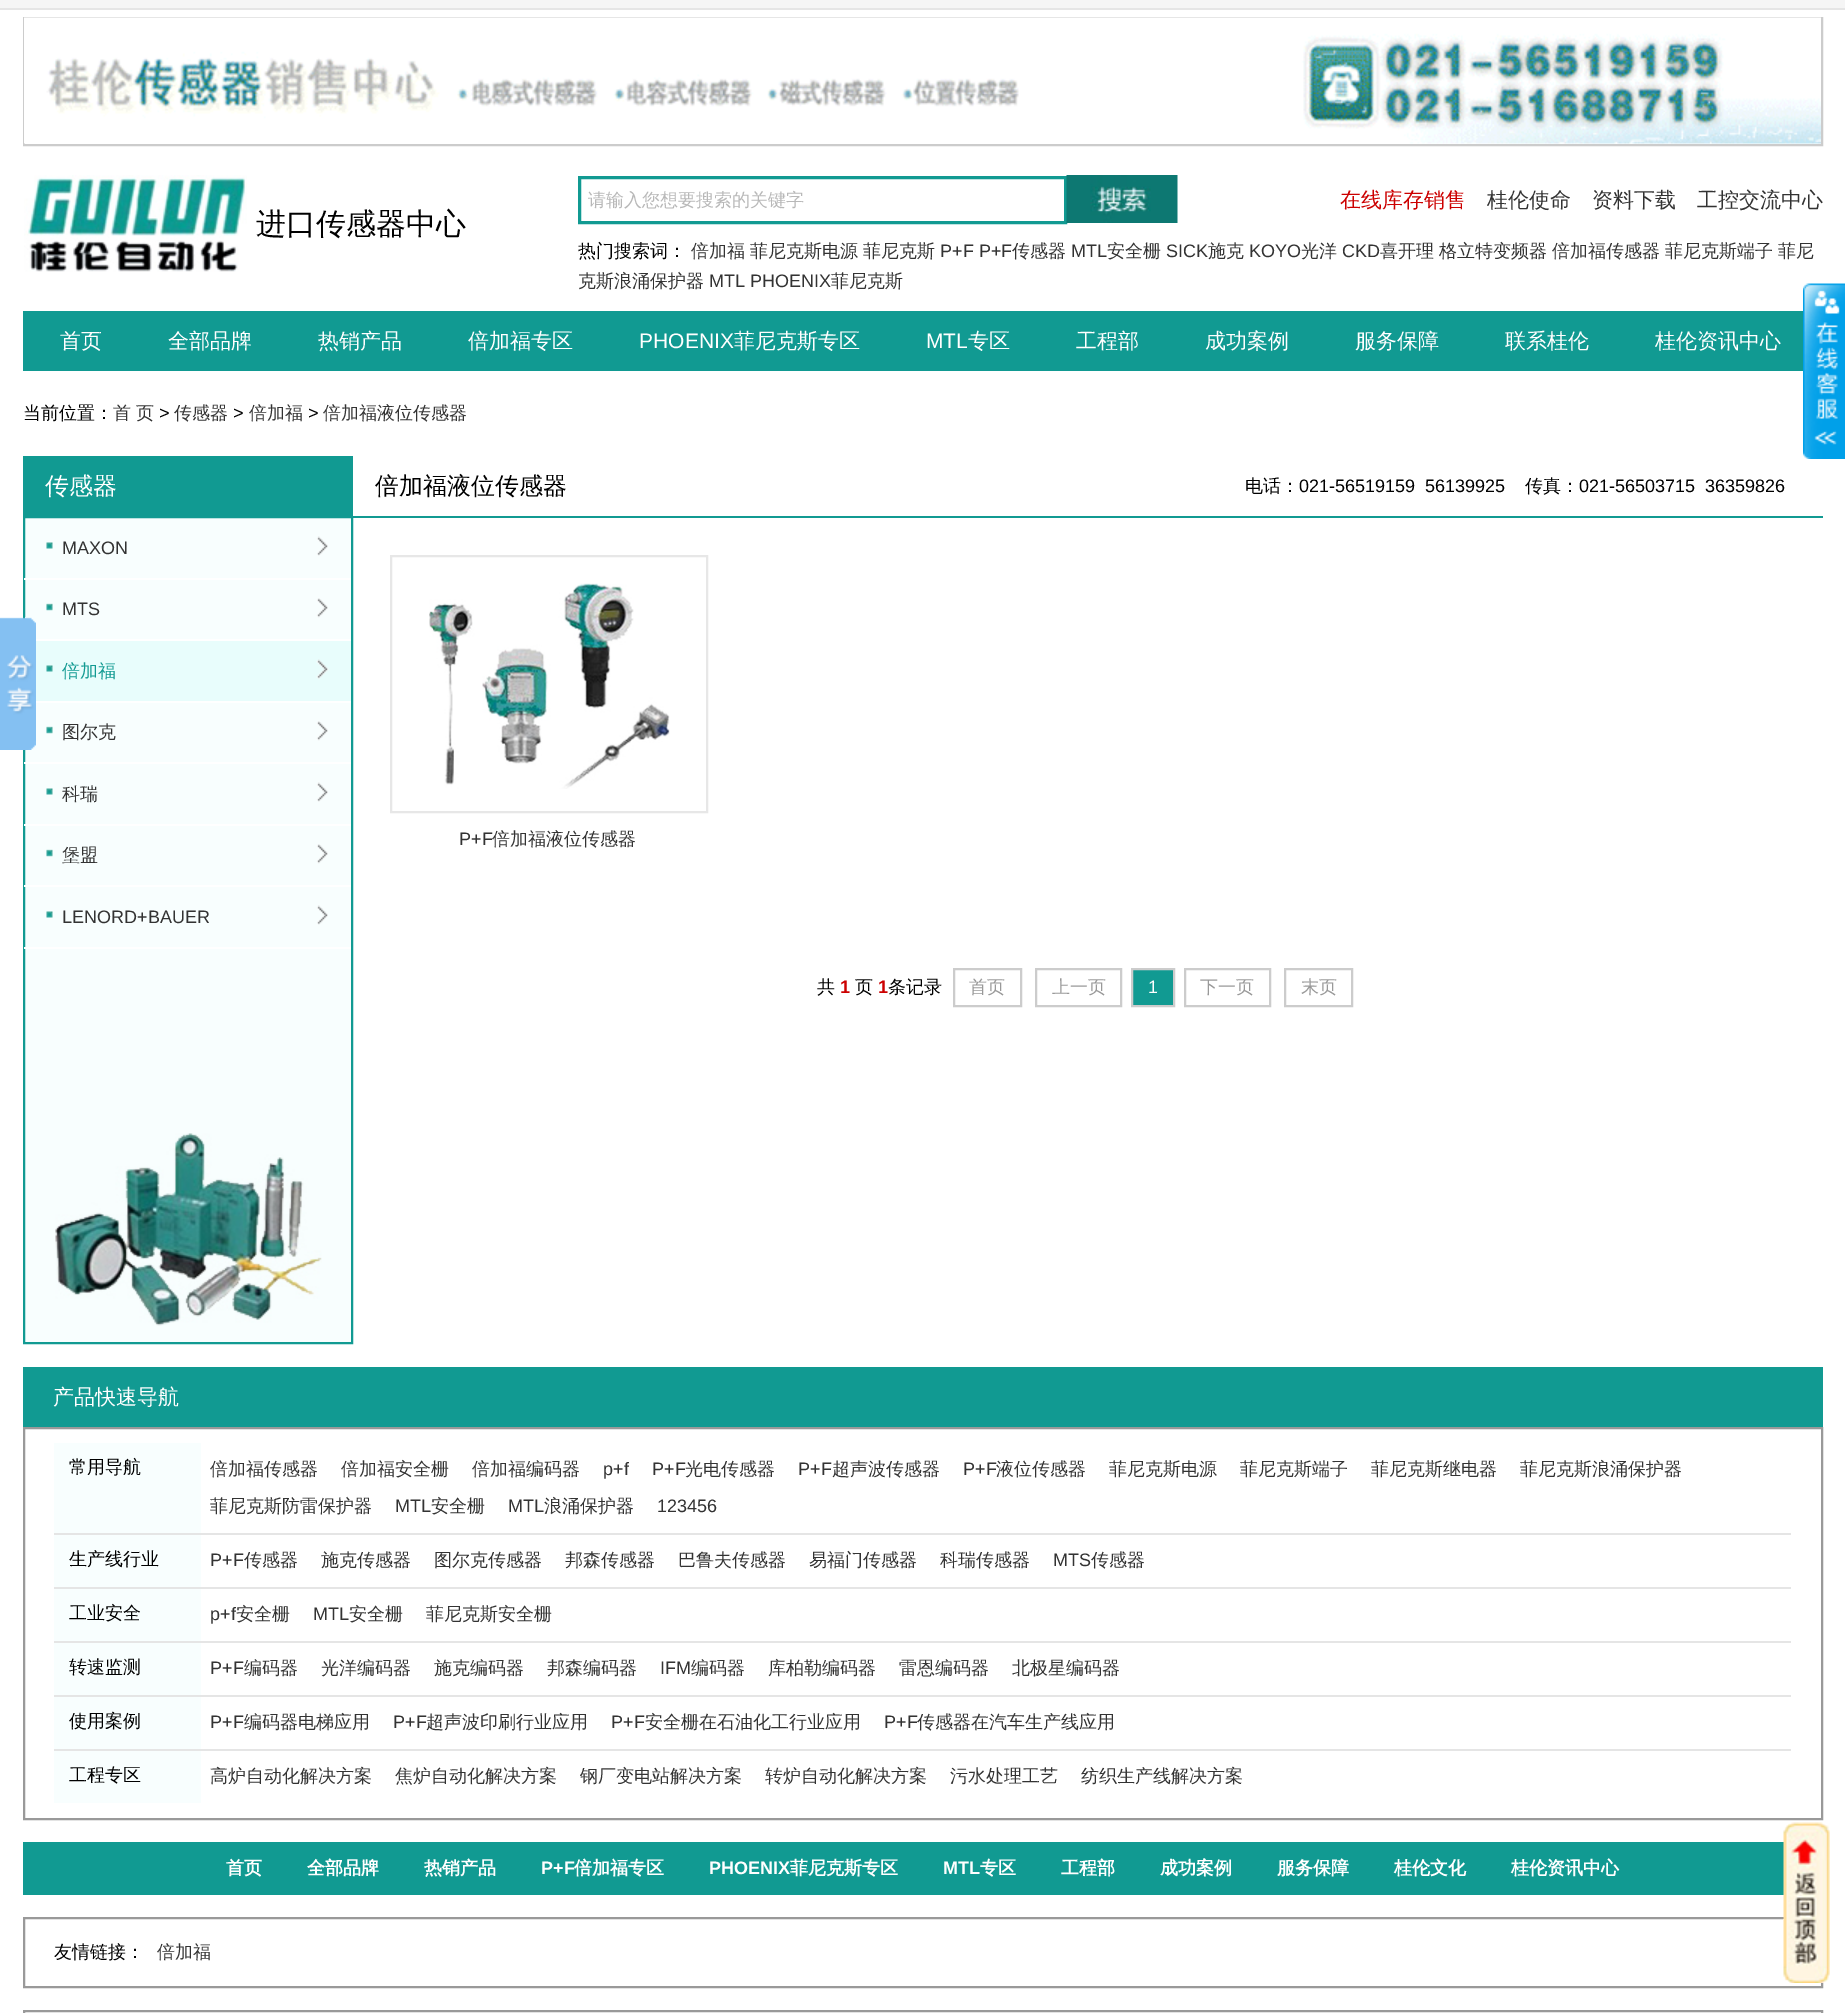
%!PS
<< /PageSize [1845 2013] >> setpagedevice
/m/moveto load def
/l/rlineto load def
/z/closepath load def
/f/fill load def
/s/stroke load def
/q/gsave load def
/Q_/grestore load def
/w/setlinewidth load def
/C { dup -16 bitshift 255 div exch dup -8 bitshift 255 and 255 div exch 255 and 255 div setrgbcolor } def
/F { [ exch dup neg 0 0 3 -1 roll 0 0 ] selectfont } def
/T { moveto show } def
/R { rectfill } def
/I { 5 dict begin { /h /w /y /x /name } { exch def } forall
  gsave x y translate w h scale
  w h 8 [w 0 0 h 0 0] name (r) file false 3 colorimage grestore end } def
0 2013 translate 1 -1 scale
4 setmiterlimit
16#FFFFFF C
0 0 1845 2013 R
16#F5F5F5 C
0 0 1845 8 R
16#E5E5E5 C
0 8 1845 2 R
16#CCCCCC C
2 w
24 18 1798 127 rectstroke
(1.rgb) 24 17 1797 127 I
(2.rgb) 24 175 223 97 I
/WenQuanYiZenHei-Medium 30 F
16#000000 C
(进口传感器中心) 256 234 T
16#119A92 C
3 w
579.5 177.5 486 45 rectstroke
/WenQuanYiZenHei-Medium 18 F
16#B8B8B8 C
(请输入您想要搜索的关键字) 588 206 T
(3.rgb) 1066 175 112 48 I
/WenQuanYiZenHei-Medium 21 F
16#CC0000 C
(在线库存销售) 1340 207 T
16#333333 C
(桂伦使命) 1487 207 T
(资料下载) 1592 207 T
(工控交流中心) 1697 207 T
/WenQuanYiZenHei-Medium 18 F
16#000000 C
(热门搜索词：) 578 257 T
16#333333 C
(倍加福) 691 257 T
(菲尼克斯电源) 750 257 T
(菲尼克斯) 863 257 T
/LiberationSans-Regular 18 F
(P+F P+F) 940 257 T
/WenQuanYiZenHei-Medium 18 F
(传感器) 1012 257 T
/LiberationSans-Regular 18 F
(MTL) 1071 257 T
/WenQuanYiZenHei-Medium 18 F
(安全栅) 1107 257 T
/LiberationSans-Regular 18 F
(SICK) 1166 257 T
/WenQuanYiZenHei-Medium 18 F
(施克) 1208 257 T
/LiberationSans-Regular 18 F
(KOYO) 1249 257 T
/WenQuanYiZenHei-Medium 18 F
(光洋) 1301 257 T
/LiberationSans-Regular 18 F
(CKD) 1342 257 T
/WenQuanYiZenHei-Medium 18 F
(喜开理) 1380 257 T
(格立特变频器) 1439 257 T
(倍加福传感器) 1552 257 T
(菲尼克斯端子) 1665 257 T
(菲尼) 1778 257 T
(克斯浪涌保护器) 578 287 T
/LiberationSans-Regular 18 F
(MTL PHOENIX) 709 287 T
/WenQuanYiZenHei-Medium 18 F
(菲尼克斯) 831 287 T
16#119A92 C
23 311 1780 60 R
/WenQuanYiZenHei-Medium 21 F
16#FFFFFF C
(首页) 60 348 T
(全部品牌) 168 348 T
(热销产品) 318 348 T
(倍加福专区) 468 348 T
/LiberationSans-Regular 21 F
(PHOENIX) 639 348 T
/WenQuanYiZenHei-Medium 21 F
(菲尼克斯专区) 734 348 T
/LiberationSans-Regular 21 F
(MTL) 926 348 T
/WenQuanYiZenHei-Medium 21 F
(专区) 968 348 T
(工程部) 1076 348 T
(成功案例) 1205 348 T
(服务保障) 1355 348 T
(联系桂伦) 1505 348 T
(桂伦资讯中心) 1655 348 T
(4.rgb) 1803 283 42 176 I
/WenQuanYiZenHei-Medium 18 F
16#000000 C
(当前位置：) 23 419 T
16#333333 C
(首 页) 113 419 T
/LiberationSans-Regular 18 F
16#000000 C
(>) 159 419 T
/WenQuanYiZenHei-Medium 18 F
16#333333 C
(传感器) 174 419 T
/LiberationSans-Regular 18 F
16#000000 C
(>) 233 419 T
/WenQuanYiZenHei-Medium 18 F
16#333333 C
(倍加福) 249 419 T
/LiberationSans-Regular 18 F
16#000000 C
(>) 308 419 T
/WenQuanYiZenHei-Medium 18 F
16#333333 C
(倍加福液位传感器) 323 419 T
16#F8FEFE C
24 517 m 328 0 l 0 826 l -328 0 l z q f Q_
16#119A92 C
2 w
s
(5.rgb) 0 617 36 133 I
23 456 330 60 R
/WenQuanYiZenHei-Medium 24 F
16#FFFFFF C
(传感器) 45 494 T
24 578 327 2 R
(6.rgb) 46 536 282 20 I
/LiberationSans-Regular 18 F
16#333333 C
(MAXON) 62 554 T
16#FFFFFF C
36 639 315 2 R
(7.rgb) 46 598 282 20 I
16#333333 C
(MTS) 62 615 T
16#FFFFFF C
36 701 315 2 R
16#E8FDFC C
36 641 315 60 R
(8.rgb) 46 659 283 20 I
/WenQuanYiZenHei-Medium 18 F
16#119A92 C
(倍加福) 62 677 T
16#FFFFFF C
24 762 327 2 R
(7.rgb) 46 721 282 20 I
16#333333 C
(图尔克) 62 738 T
16#FFFFFF C
24 824 327 2 R
(6.rgb) 46 782 282 20 I
16#333333 C
(科瑞) 62 800 T
16#FFFFFF C
24 885 327 2 R
(7.rgb) 46 844 282 20 I
16#333333 C
(堡盟) 62 861 T
16#FFFFFF C
24 947 327 2 R
(6.rgb) 46 905 282 20 I
/LiberationSans-Regular 18 F
16#333333 C
(LENORD+BAUER) 62 923 T
(9.rgb) 55 1133 267 193 I
16#119A92 C
353 516 1470 2 R
/WenQuanYiZenHei-Medium 24 F
16#000000 C
(倍加福液位传感器) 375 494 T
/WenQuanYiZenHei-Medium 18 F
(电话：) 1245 492 T
/LiberationSans-Regular 18 F
(021-56519159  56139925) 1299 492 T
/WenQuanYiZenHei-Medium 18 F
(传真：) 1525 492 T
/LiberationSans-Regular 18 F
(021-56503715  36359826) 1579 492 T
16#E7E7E7 C
391 556 316 256 rectstroke
(10.rgb) 429 583 241 206 I
16#333333 C
(P+F) 459 845 T
/WenQuanYiZenHei-Medium 18 F
(倍加福液位传感器) 492 845 T
16#000000 C
(共) 817 993 T
/LiberationSans-Bold 18 F
16#CC0000 C
(1) 840 993 T
/WenQuanYiZenHei-Medium 18 F
16#000000 C
(页) 855 993 T
/LiberationSans-Bold 18 F
16#CC0000 C
(1) 878 993 T
/WenQuanYiZenHei-Medium 18 F
16#000000 C
(条记录) 888 993 T
16#CCCCCC C
954 969 67 37 rectstroke
16#999999 C
(首页) 969 993 T
16#CCCCCC C
1036 969 85 37 rectstroke
16#999999 C
(上一页) 1052 993 T
16#119A92 C
1132 969 m 42 0 l 0 37 l -42 0 l z q f Q_
16#CCCCCC C
s
/LiberationSans-Regular 18 F
16#FFFFFF C
(1) 1148 993 T
16#CCCCCC C
1185 969 85 37 rectstroke
/WenQuanYiZenHei-Medium 18 F
16#999999 C
(下一页) 1200 993 T
16#CCCCCC C
1285 969 67 37 rectstroke
16#999999 C
(末页) 1301 993 T
16#119A92 C
23 1367 1800 60 R
/WenQuanYiZenHei-Medium 21 F
16#FFFFFF C
(产品快速导航) 53 1404 T
16#999999 C
24 1428 1798 391 rectstroke
16#F8FEFE C
54 1443 147 90 R
/WenQuanYiZenHei-Medium 18 F
16#000000 C
(常用导航) 69 1473 T
16#333333 C
(倍加福传感器) 210 1475 T
(倍加福安全栅) 341 1475 T
(倍加福编码器) 472 1475 T
/LiberationSans-Regular 18 F
(p+f) 603 1475 T
(P+F) 652 1475 T
/WenQuanYiZenHei-Medium 18 F
(光电传感器) 685 1475 T
/LiberationSans-Regular 18 F
(P+F) 798 1475 T
/WenQuanYiZenHei-Medium 18 F
(超声波传感器) 832 1475 T
/LiberationSans-Regular 18 F
(P+F) 963 1475 T
/WenQuanYiZenHei-Medium 18 F
(液位传感器) 996 1475 T
(菲尼克斯电源) 1109 1475 T
(菲尼克斯端子) 1240 1475 T
(菲尼克斯继电器) 1371 1475 T
(菲尼克斯浪涌保护器) 1520 1475 T
(菲尼克斯防雷保护器) 210 1512 T
/LiberationSans-Regular 18 F
(MTL) 395 1512 T
/WenQuanYiZenHei-Medium 18 F
(安全栅) 431 1512 T
/LiberationSans-Regular 18 F
(MTL) 508 1512 T
/WenQuanYiZenHei-Medium 18 F
(浪涌保护器) 544 1512 T
/LiberationSans-Regular 18 F
(123456) 657 1512 T
16#F8FEFE C
54 1535 147 52 R
16#E5E5E5 C
54 1533 1737 2 R
/WenQuanYiZenHei-Medium 18 F
16#000000 C
(生产线行业) 69 1565 T
/LiberationSans-Regular 18 F
16#333333 C
(P+F) 210 1566 T
/WenQuanYiZenHei-Medium 18 F
(传感器) 244 1566 T
(施克传感器) 321 1566 T
(图尔克传感器) 434 1566 T
(邦森传感器) 565 1566 T
(巴鲁夫传感器) 678 1566 T
(易福门传感器) 809 1566 T
(科瑞传感器) 940 1566 T
/LiberationSans-Regular 18 F
(MTS) 1053 1566 T
/WenQuanYiZenHei-Medium 18 F
(传感器) 1091 1566 T
16#F8FEFE C
54 1589 147 52 R
16#E5E5E5 C
54 1587 1737 2 R
16#000000 C
(工业安全) 69 1619 T
/LiberationSans-Regular 18 F
16#333333 C
(p+f) 210 1620 T
/WenQuanYiZenHei-Medium 18 F
(安全栅) 236 1620 T
/LiberationSans-Regular 18 F
(MTL) 313 1620 T
/WenQuanYiZenHei-Medium 18 F
(安全栅) 349 1620 T
(菲尼克斯安全栅) 426 1620 T
16#F8FEFE C
54 1643 147 52 R
16#E5E5E5 C
54 1641 1737 2 R
16#000000 C
(转速监测) 69 1673 T
/LiberationSans-Regular 18 F
16#333333 C
(P+F) 210 1674 T
/WenQuanYiZenHei-Medium 18 F
(编码器) 244 1674 T
(光洋编码器) 321 1674 T
(施克编码器) 434 1674 T
(邦森编码器) 547 1674 T
/LiberationSans-Regular 18 F
(IFM) 660 1674 T
/WenQuanYiZenHei-Medium 18 F
(编码器) 691 1674 T
(库柏勒编码器) 768 1674 T
(雷恩编码器) 899 1674 T
(北极星编码器) 1012 1674 T
16#F8FEFE C
54 1697 147 52 R
16#E5E5E5 C
54 1695 1737 2 R
16#000000 C
(使用案例) 69 1727 T
/LiberationSans-Regular 18 F
16#333333 C
(P+F) 210 1728 T
/WenQuanYiZenHei-Medium 18 F
(编码器电梯应用) 244 1728 T
/LiberationSans-Regular 18 F
(P+F) 393 1728 T
/WenQuanYiZenHei-Medium 18 F
(超声波印刷行业应用) 426 1728 T
/LiberationSans-Regular 18 F
(P+F) 611 1728 T
/WenQuanYiZenHei-Medium 18 F
(安全栅在石油化工行业应用) 645 1728 T
/LiberationSans-Regular 18 F
(P+F) 884 1728 T
/WenQuanYiZenHei-Medium 18 F
(传感器在汽车生产线应用) 917 1728 T
16#F8FEFE C
54 1751 147 52 R
16#E5E5E5 C
54 1749 1737 2 R
16#000000 C
(工程专区) 69 1781 T
16#333333 C
(高炉自动化解决方案) 210 1782 T
(焦炉自动化解决方案) 395 1782 T
(钢厂变电站解决方案) 580 1782 T
(转炉自动化解决方案) 765 1782 T
(污水处理工艺) 950 1782 T
(纺织生产线解决方案) 1081 1782 T
16#119A92 C
23 1842 1761 53 R
/WenQuanYiZenHei-Bold 18 F
16#FFFFFF C
(首页) 226 1874 T
(全部品牌) 307 1874 T
(热销产品) 424 1874 T
/LiberationSans-Bold 18 F
(P+F) 541 1874 T
/WenQuanYiZenHei-Bold 18 F
(倍加福专区) 574 1874 T
/LiberationSans-Bold 18 F
(PHOENIX) 709 1874 T
/WenQuanYiZenHei-Bold 18 F
(菲尼克斯专区) 790 1874 T
/LiberationSans-Bold 18 F
(MTL) 943 1874 T
/WenQuanYiZenHei-Bold 18 F
(专区) 980 1874 T
(工程部) 1061 1874 T
(成功案例) 1160 1874 T
(服务保障) 1277 1874 T
(桂伦文化) 1394 1874 T
(桂伦资讯中心) 1511 1874 T
16#999999 C
24 1918 1798 69 rectstroke
(11.rgb) 1783 1822 47 161 I
/WenQuanYiZenHei-Medium 18 F
16#000000 C
(友情链接：) 54 1958 T
16#333333 C
(倍加福) 157 1958 T
16#999999 C
24 2011 1798 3 rectstroke
showpage
